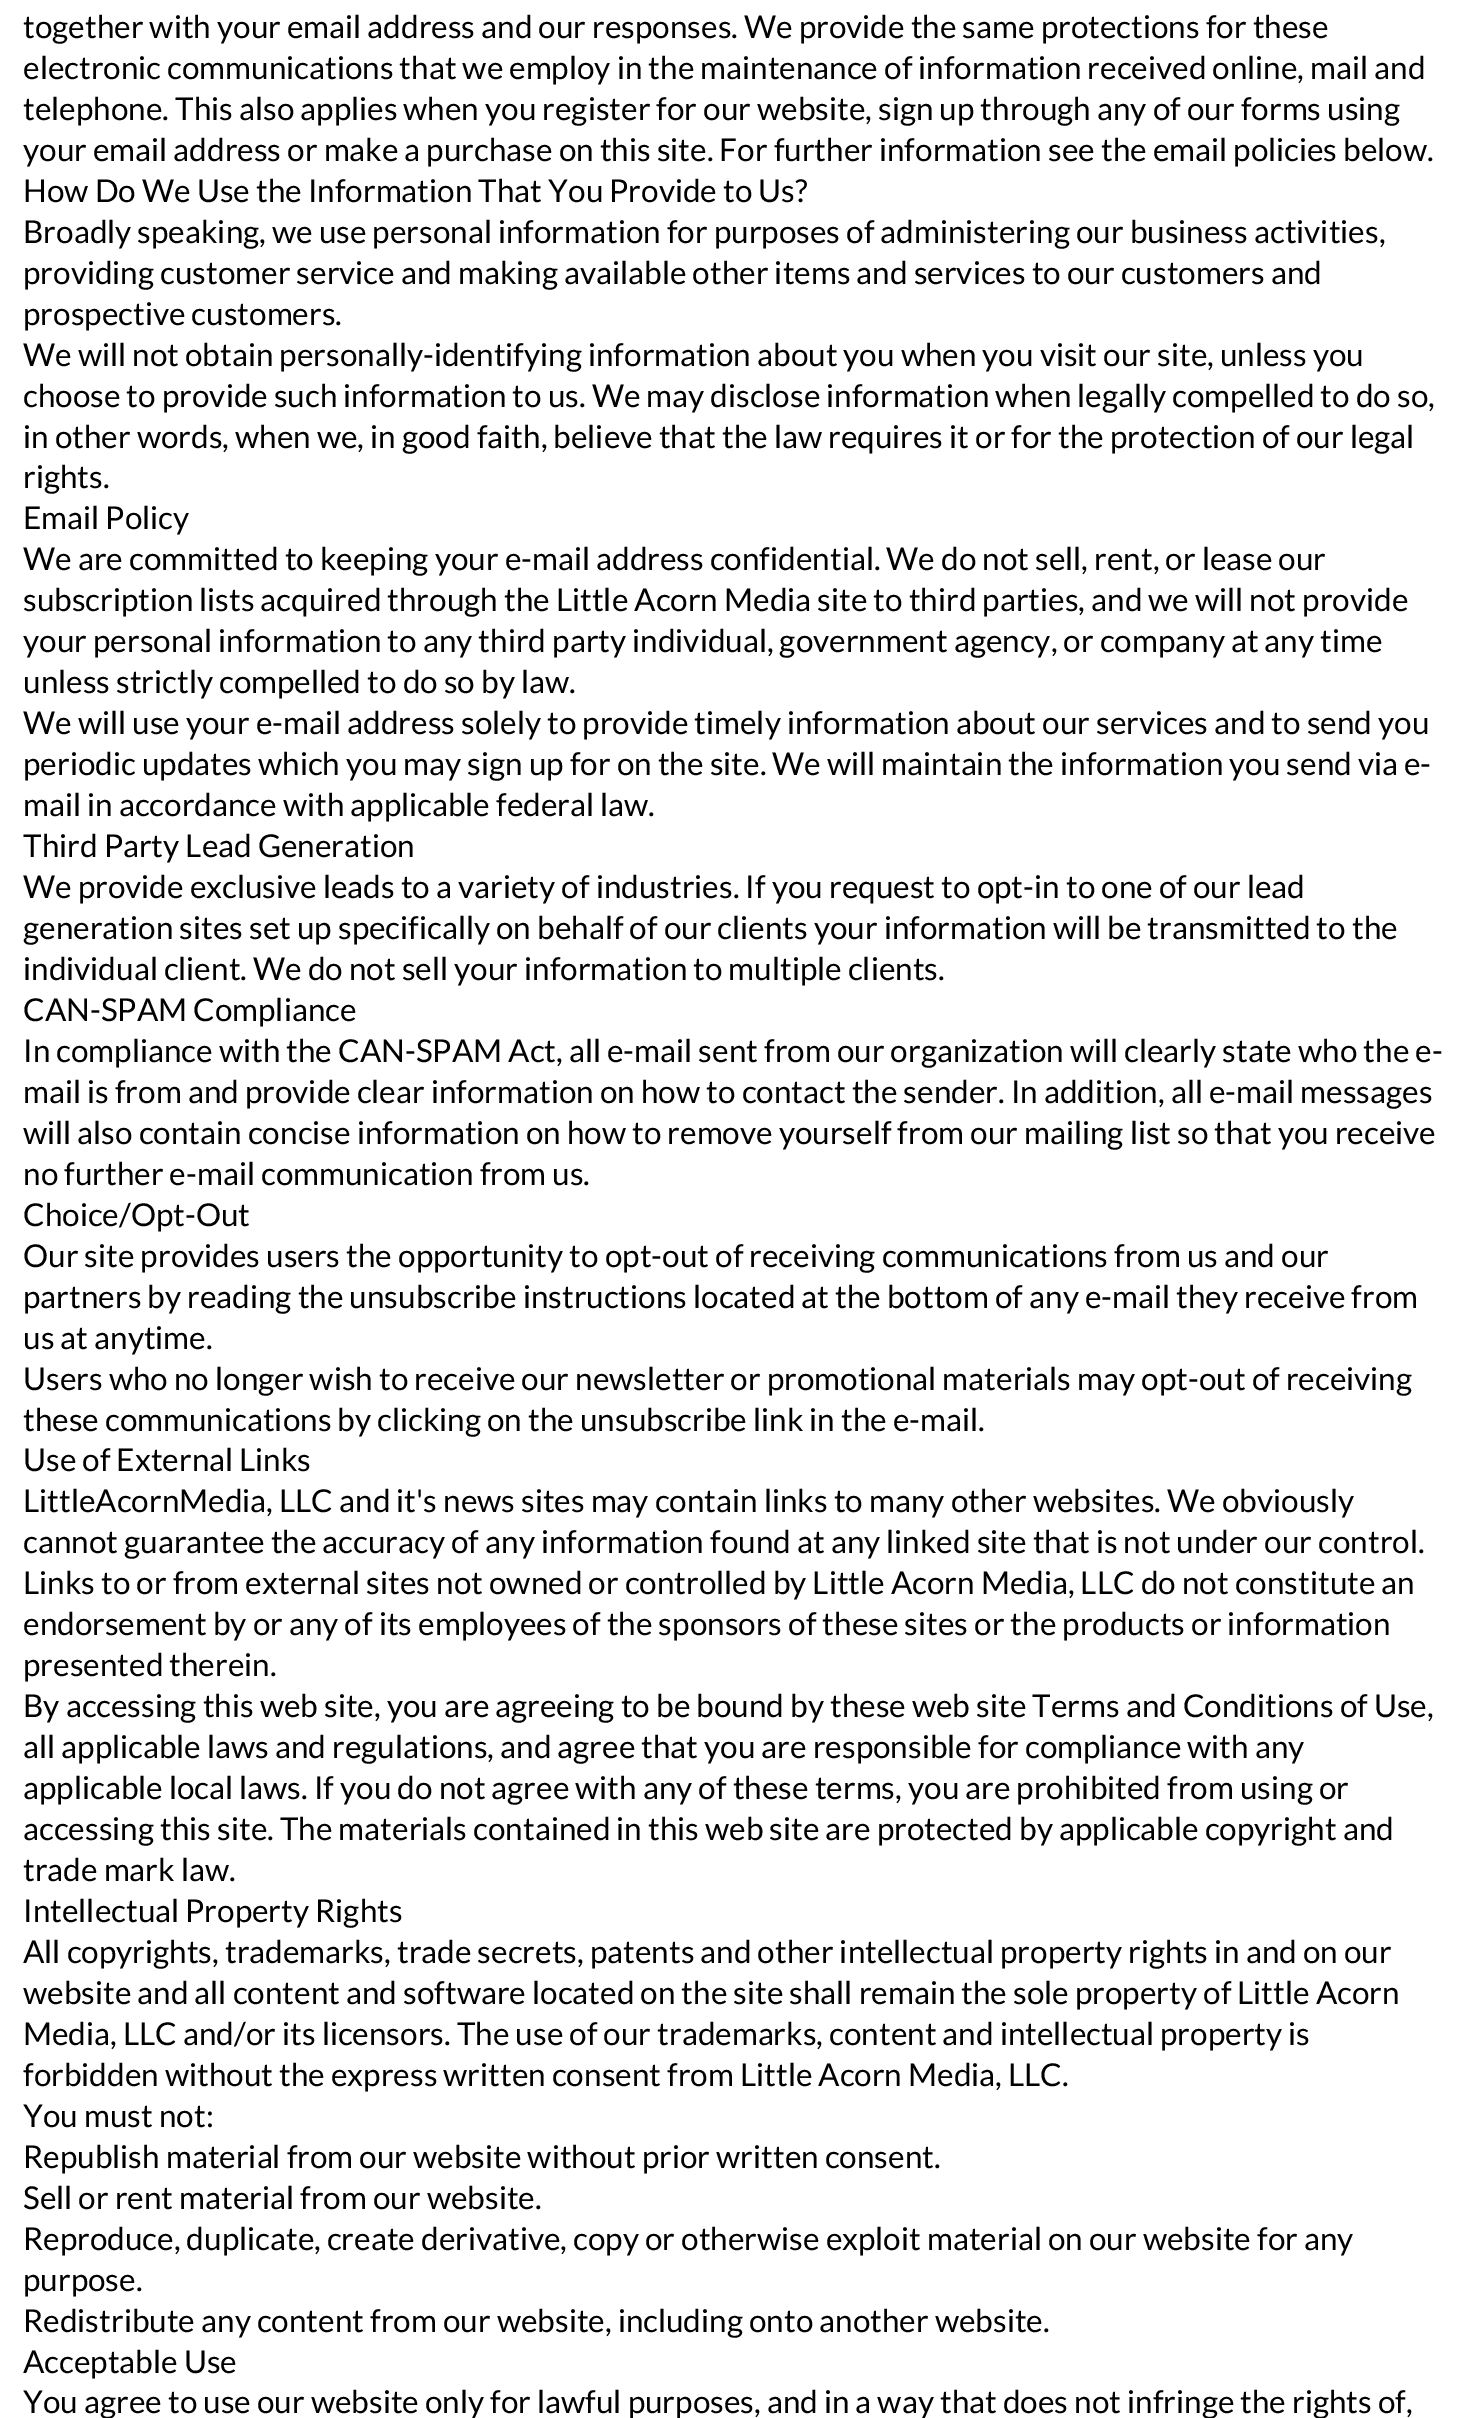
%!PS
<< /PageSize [1470 2418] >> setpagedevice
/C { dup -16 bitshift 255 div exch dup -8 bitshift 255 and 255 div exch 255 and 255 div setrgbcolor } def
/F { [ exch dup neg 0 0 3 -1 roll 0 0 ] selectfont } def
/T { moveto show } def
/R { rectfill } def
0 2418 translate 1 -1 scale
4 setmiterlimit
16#FFFFFF C
0 0 1470 2418 R
/Lato-Regular 31.5 F
16#000000 C
(together with your email address and our responses. We provide the same protections for these) 23 38 T
(electronic communications that we employ in the maintenance of information received online, mail and) 23 79 T
(telephone. This also applies when you register for our website, sign up through any of our forms using) 23 120 T
(your email address or make a purchase on this site. For further information see the email policies below.) 23 161 T
(How Do We Use the Information That You Provide to Us?) 23 202 T
(Broadly speaking, we use personal information for purposes of administering our business activities,) 23 243 T
(providing customer service and making available other items and services to our customers and) 23 284 T
(prospective customers.) 23 325 T
(We will not obtain personally-identifying information about you when you visit our site, unless you) 23 366 T
(choose to provide such information to us. We may disclose information when legally compelled to do so,) 23 407 T
(in other words, when we, in good faith, believe that the law requires it or for the protection of our legal) 23 448 T
(rights.) 23 488 T
(Email Policy) 23 529 T
(We are committed to keeping your e-mail address confidential. We do not sell, rent, or lease our) 23 570 T
(subscription lists acquired through the Little Acorn Media site to third parties, and we will not provide) 23 611 T
(your personal information to any third party individual, government agency, or company at any time) 23 652 T
(unless strictly compelled to do so by law.) 23 693 T
(We will use your e-mail address solely to provide timely information about our services and to send you) 23 734 T
(periodic updates which you may sign up for on the site. We will maintain the information you send via e-) 23 775 T
(mail in accordance with applicable federal law.) 23 816 T
(Third Party Lead Generation) 23 857 T
(We provide exclusive leads to a variety of industries. If you request to opt-in to one of our lead) 23 898 T
(generation sites set up specifically on behalf of our clients your information will be transmitted to the) 23 939 T
(individual client. We do not sell your information to multiple clients.) 23 980 T
(CAN-SPAM Compliance) 23 1021 T
(In compliance with the CAN-SPAM Act, all e-mail sent from our organization will clearly state who the e-) 23 1062 T
(mail is from and provide clear information on how to contact the sender. In addition, all e-mail messages) 23 1103 T
(will also contain concise information on how to remove yourself from our mailing list so that you receive) 23 1144 T
(no further e-mail communication from us.) 23 1185 T
(Choice/Opt-Out) 23 1226 T
(Our site provides users the opportunity to opt-out of receiving communications from us and our) 23 1267 T
(partners by reading the unsubscribe instructions located at the bottom of any e-mail they receive from) 23 1308 T
(us at anytime.) 23 1349 T
(Users who no longer wish to receive our newsletter or promotional materials may opt-out of receiving) 23 1390 T
(these communications by clicking on the unsubscribe link in the e-mail.) 23 1431 T
(Use of External Links) 23 1471 T
(LittleAcornMedia, LLC and it's news sites may contain links to many other websites. We obviously) 23 1512 T
(cannot guarantee the accuracy of any information found at any linked site that is not under our control.) 23 1553 T
(Links to or from external sites not owned or controlled by Little Acorn Media, LLC do not constitute an) 23 1594 T
(endorsement by or any of its employees of the sponsors of these sites or the products or information) 23 1635 T
(presented therein.) 23 1676 T
(By accessing this web site, you are agreeing to be bound by these web site Terms and Conditions of Use,) 23 1717 T
(all applicable laws and regulations, and agree that you are responsible for compliance with any) 23 1758 T
(applicable local laws. If you do not agree with any of these terms, you are prohibited from using or) 23 1799 T
(accessing this site. The materials contained in this web site are protected by applicable copyright and) 23 1840 T
(trade mark law.) 23 1881 T
(Intellectual Property Rights) 23 1922 T
(All copyrights, trademarks, trade secrets, patents and other intellectual property rights in and on our) 23 1963 T
(website and all content and software located on the site shall remain the sole property of Little Acorn) 23 2004 T
(Media, LLC and/or its licensors. The use of our trademarks, content and intellectual property is) 23 2045 T
(forbidden without the express written consent from Little Acorn Media, LLC.) 23 2086 T
(You must not:) 23 2127 T
(Republish material from our website without prior written consent.) 23 2168 T
(Sell or rent material from our website.) 23 2209 T
(Reproduce, duplicate, create derivative, copy or otherwise exploit material on our website for any) 23 2250 T
(purpose.) 23 2291 T
(Redistribute any content from our website, including onto another website.) 23 2332 T
(Acceptable Use) 23 2373 T
(You agree to use our website only for lawful purposes, and in a way that does not infringe the rights of,) 23 2413 T
showpage
